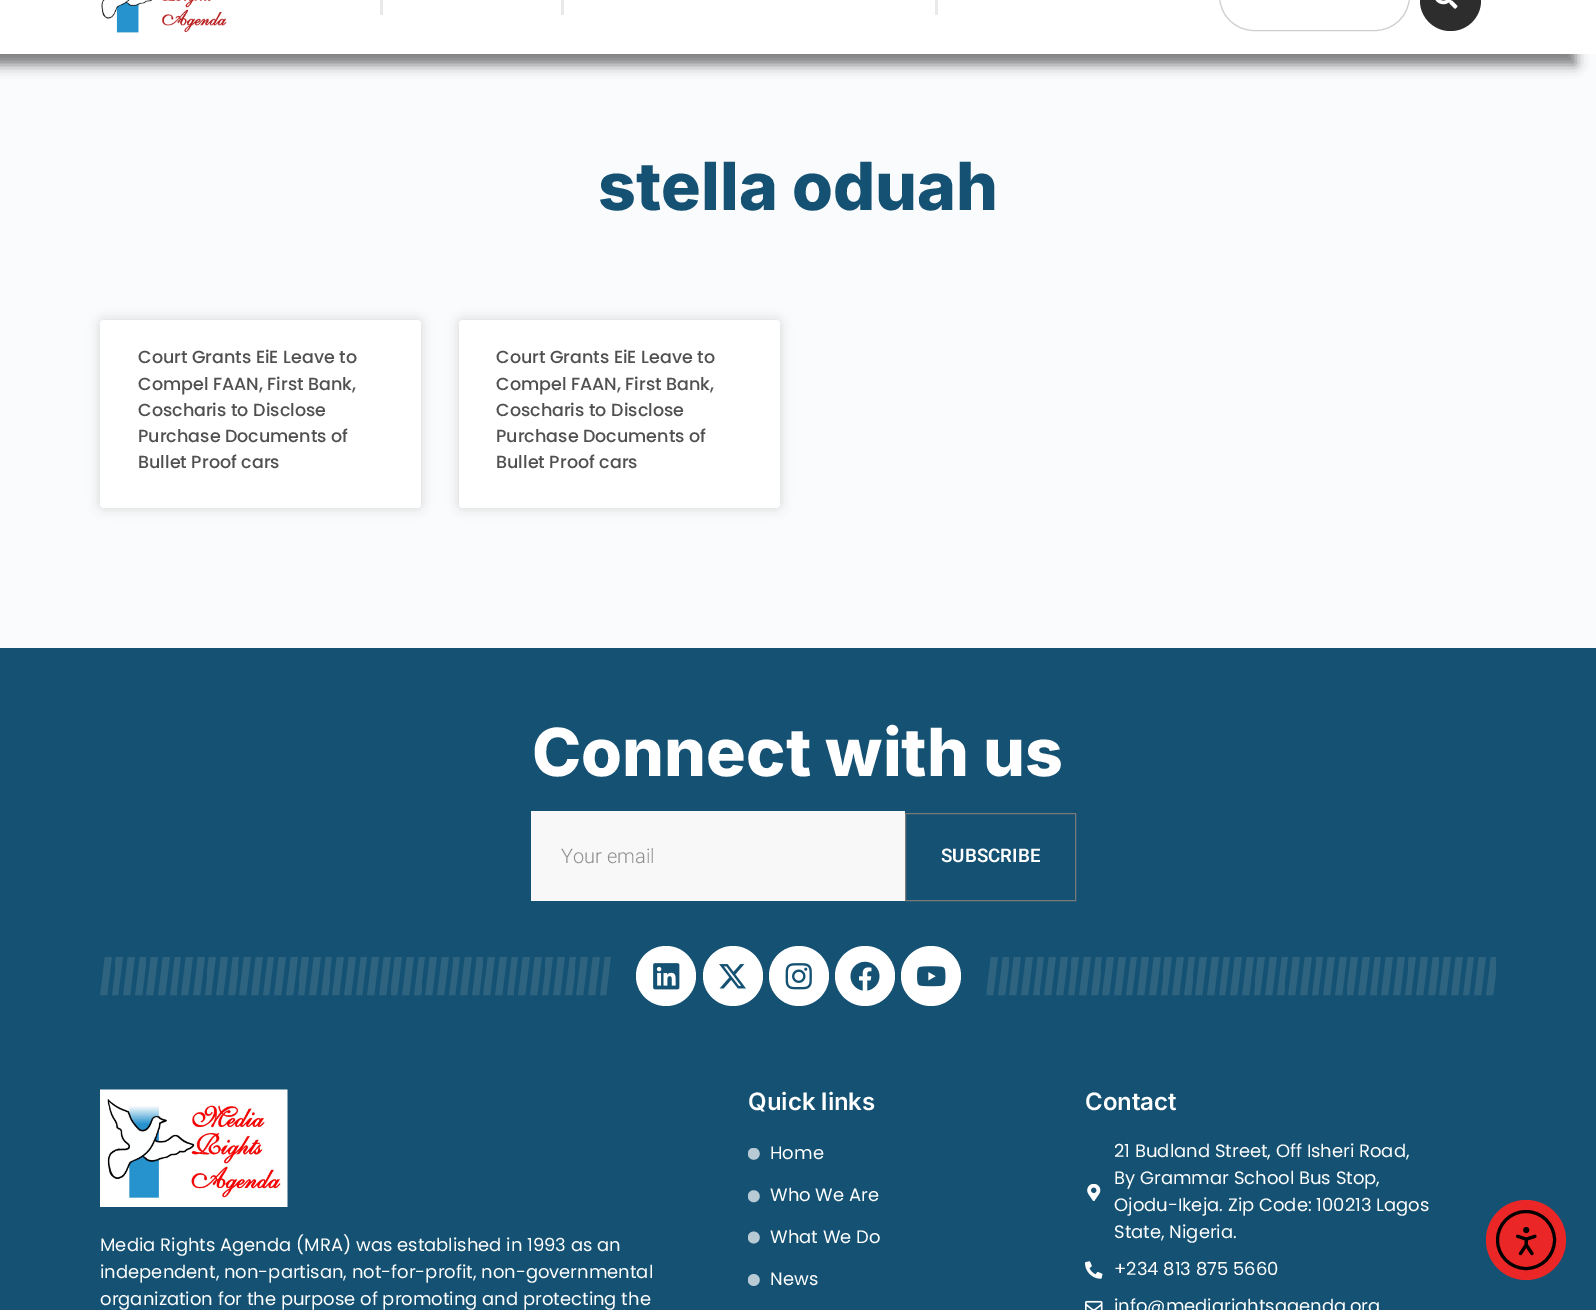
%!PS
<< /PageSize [1596 1310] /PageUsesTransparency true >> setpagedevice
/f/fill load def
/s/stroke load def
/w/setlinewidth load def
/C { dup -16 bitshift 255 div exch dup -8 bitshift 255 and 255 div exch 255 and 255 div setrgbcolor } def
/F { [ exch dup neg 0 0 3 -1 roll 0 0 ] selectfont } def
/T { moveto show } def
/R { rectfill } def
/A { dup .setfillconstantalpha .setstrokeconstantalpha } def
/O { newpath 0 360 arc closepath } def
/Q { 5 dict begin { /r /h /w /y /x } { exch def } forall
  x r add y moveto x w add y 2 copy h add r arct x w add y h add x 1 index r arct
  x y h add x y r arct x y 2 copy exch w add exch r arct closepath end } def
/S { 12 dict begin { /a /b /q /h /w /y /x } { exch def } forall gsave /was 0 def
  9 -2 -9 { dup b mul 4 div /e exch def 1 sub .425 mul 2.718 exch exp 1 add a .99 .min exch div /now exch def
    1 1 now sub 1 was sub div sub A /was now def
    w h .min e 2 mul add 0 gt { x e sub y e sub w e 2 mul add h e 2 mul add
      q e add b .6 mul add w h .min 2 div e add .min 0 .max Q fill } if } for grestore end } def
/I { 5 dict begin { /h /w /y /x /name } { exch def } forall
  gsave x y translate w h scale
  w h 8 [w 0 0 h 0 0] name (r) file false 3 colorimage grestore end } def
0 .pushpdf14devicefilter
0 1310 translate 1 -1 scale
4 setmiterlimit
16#FAFBFC C
0 0 1596 1310 R
16#000000 C
-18 -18 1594 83 0 6 .5 S
16#FFFFFF C
0 0 1596 54 R
(1.rgb) 101 0 126 33 I
16#F3F6F8 C
350 0 1 1 R
16#E9E9E9 C
380 0 3 15 R
561 0 3 15 R
935 0 3 15 R
16#CDCDCD C
1219.5 -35.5 190 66 34.5 Q s
16#2D2D2D C
1420 -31 61 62 30.5 Q f
(2.rgb) 1435 0 23 9 I
/Inter-ExtraBold 66.25 F
16#145172 C
(stella oduah) 598 210 T
16#000000 C
100 320 321 188 4 6 .15 S
16#FFFFFF C
100 320 321 188 4 Q f
/Poppins-Medium 17.5 F
16#505050 C
(Court Grants EiE Leave to) 138 363 T
(Compel FAAN, First Bank,) 138 390 T
(Coscharis to Disclose) 138 416 T
(Purchase Documents of) 138 442 T
(Bullet Proof cars) 138 468 T
16#000000 C
459 320 321 188 4 6 .15 S
16#FFFFFF C
459 320 321 188 4 Q f
16#505050 C
(Court Grants EiE Leave to) 496 363 T
(Compel FAAN, First Bank,) 496 390 T
(Coscharis to Disclose) 496 416 T
(Purchase Documents of) 496 442 T
(Bullet Proof cars) 496 468 T
16#145172 C
0 648 1596 662 R
/Inter-ExtraBold 66.25 F
16#FFFFFF C
(Connect with us) 532 776 T
16#F8F8F8 C
531 811 374 90 R
/Roboto-Light 20 F
16#8E8E8E C
(Your email) 561 863 T
16#787878 C
905.5 813.5 170 87 rectstroke
/Roboto-SemiBold 18.75 F
16#FFFFFF C
(SUBSCRIBE) 941 862 T
(3.rgb) 100 957 511 39 I
666 976 30 O f
(4.rgb) 653 963 27 27 I
733 976 30 O f
(5.rgb) 719 964 27 25 I
799 976 30 O f
(6.rgb) 785 963 27 27 I
865 976 30 O f
(7.rgb) 850 961 30 30 I
931 976 30 O f
(8.rgb) 917 966 29 21 I
(9.rgb) 986 957 510 39 I
(10.rgb) 100 1089 188 118 I
/Poppins-Regular 18 F
(Media Rights Agenda \(MRA\) was established in 1993 as an) 100 1251 T
(independent, non-partisan, not-for-profit, non-governmental) 100 1278 T
(organization for the purpose of promoting and protecting the) 100 1305 T
/Inter-SemiBold 24 F
(Quick links) 748 1110 T
(11.rgb) 748 1148 12 12 I
/Poppins-Regular 18 F
(Home) 770 1159 T
(12.rgb) 748 1190 12 13 I
(Who We Are) 770 1201 T
(13.rgb) 748 1231 12 13 I
(What We Do) 770 1243 T
(14.rgb) 748 1274 12 12 I
(News) 770 1285 T
/Inter-SemiBold 24 F
(Contact) 1085 1110 T
(15.rgb) 1087 1184 14 17 I
/Poppins-Regular 18 F
(21 Budland Street, Off Isheri Road,) 1114 1157 T
(By Grammar School Bus Stop,) 1114 1184 T
(Ojodu-Ikeja. Zip Code: 100213 Lagos) 1114 1211 T
(State, Nigeria.) 1114 1238 T
(16.rgb) 1085 1261 18 18 I
(+234 813 875 5660) 1114 1275 T
(17.rgb) 1085 1300 18 10 I
(info@mediarightsagenda.org) 1114 1312 T
16#EB2626 C
1526 1240 40 O f
16#000000 C
3 w
1526 1240 28.5 O s
(18.rgb) 1516 1226 21 30 I
.poppdf14devicefilter showpage
